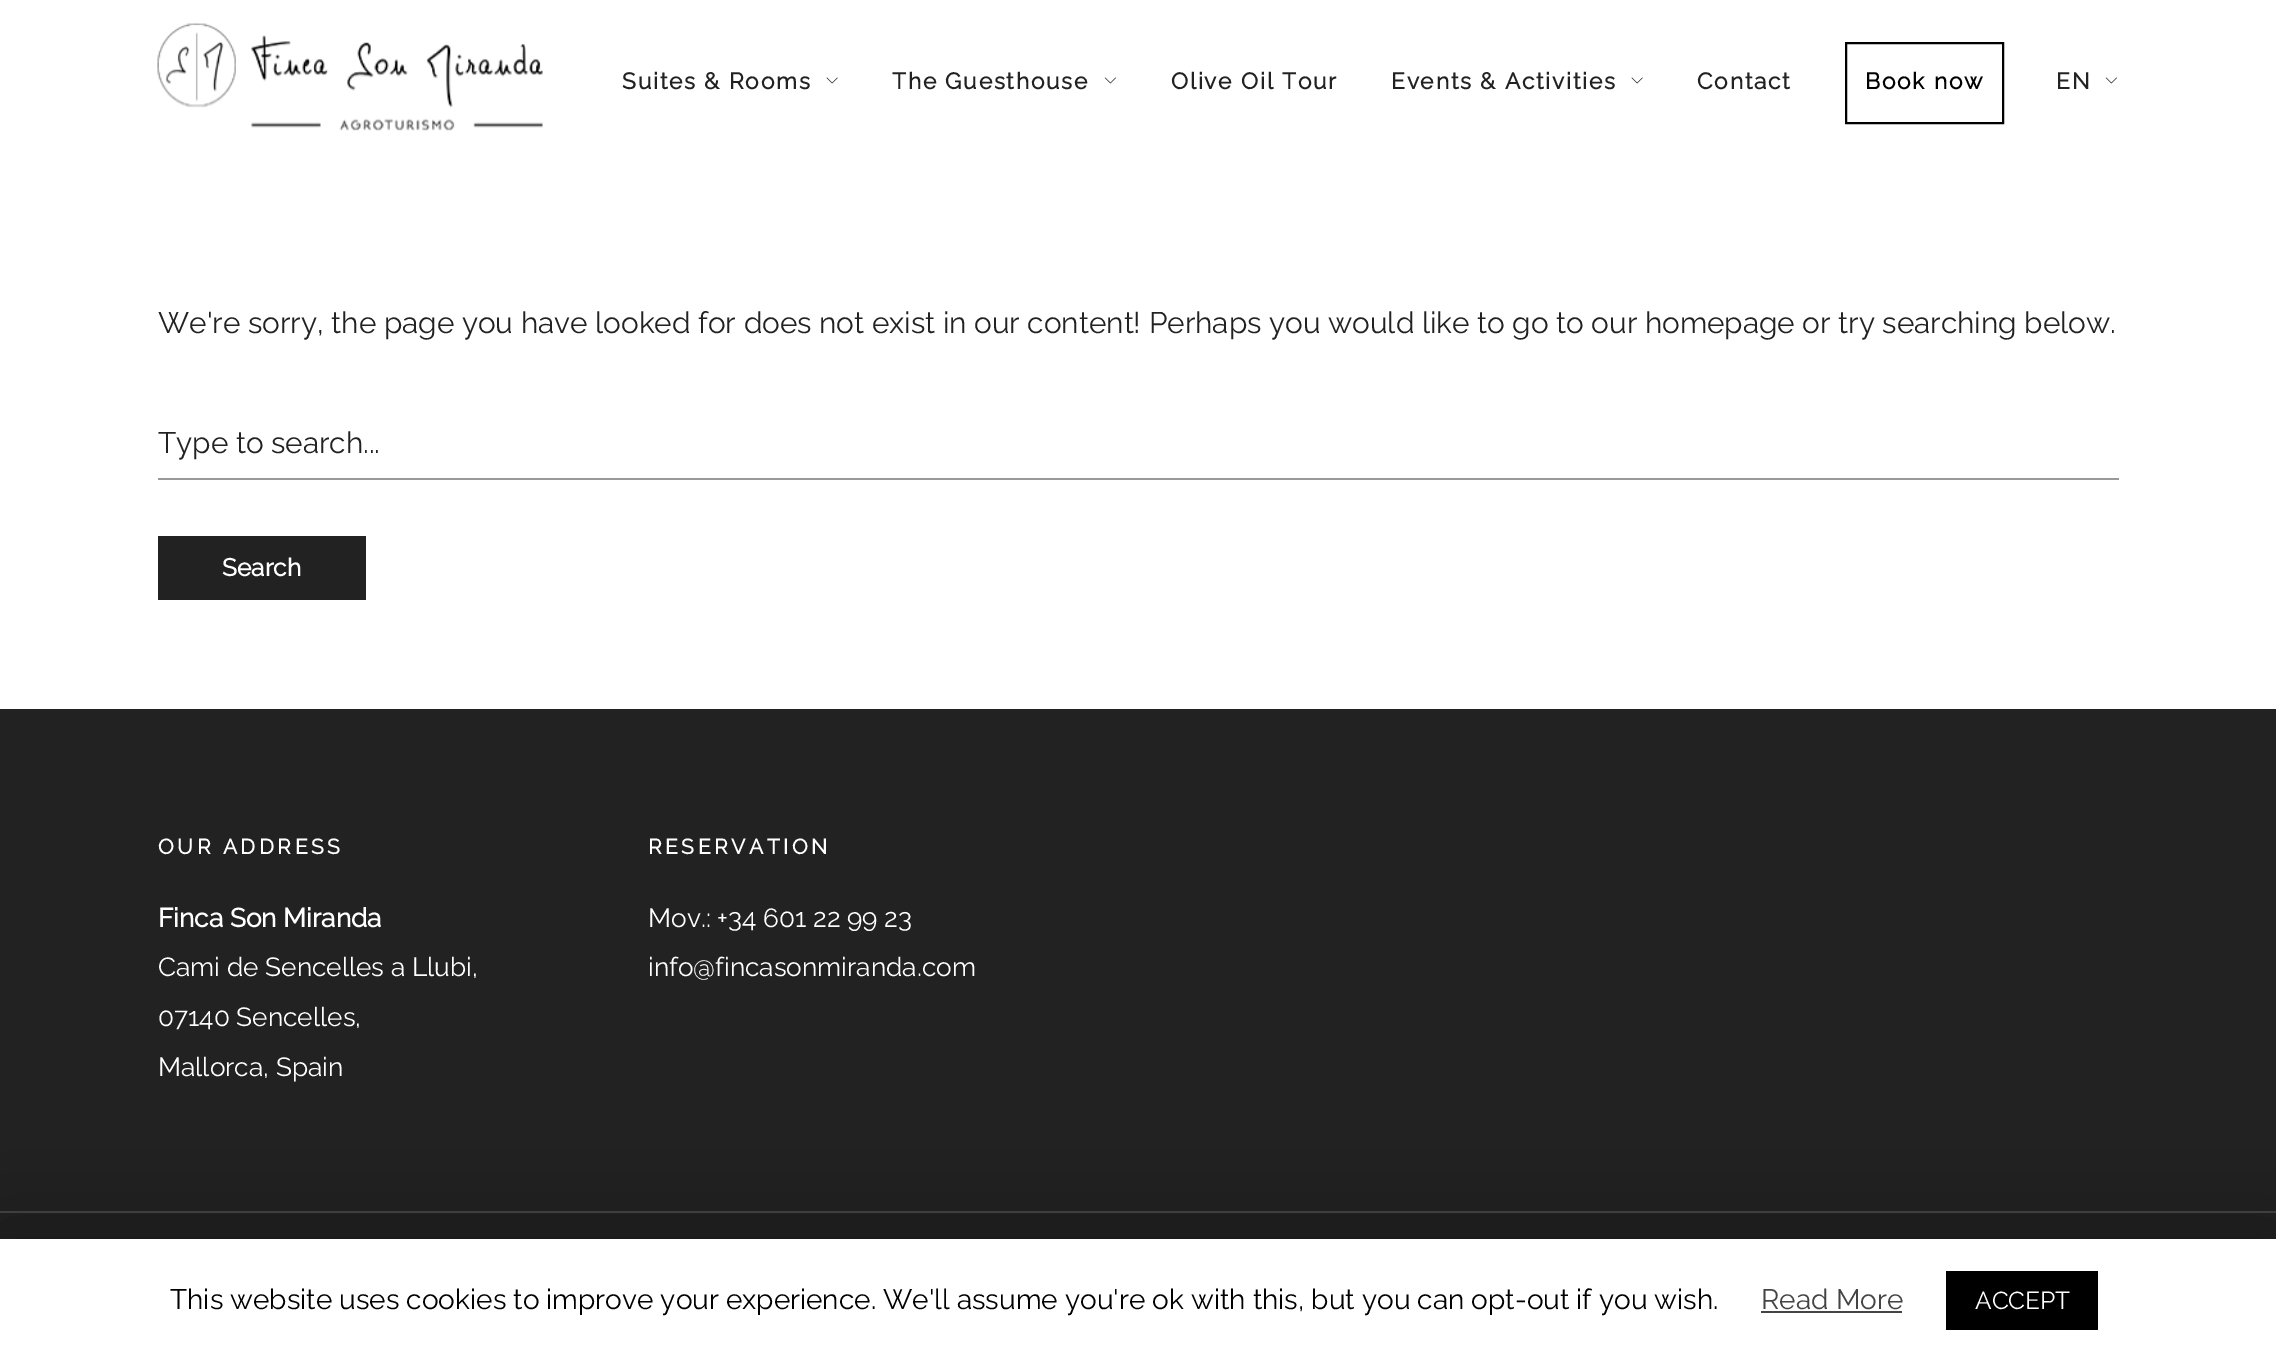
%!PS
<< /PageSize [2276 1361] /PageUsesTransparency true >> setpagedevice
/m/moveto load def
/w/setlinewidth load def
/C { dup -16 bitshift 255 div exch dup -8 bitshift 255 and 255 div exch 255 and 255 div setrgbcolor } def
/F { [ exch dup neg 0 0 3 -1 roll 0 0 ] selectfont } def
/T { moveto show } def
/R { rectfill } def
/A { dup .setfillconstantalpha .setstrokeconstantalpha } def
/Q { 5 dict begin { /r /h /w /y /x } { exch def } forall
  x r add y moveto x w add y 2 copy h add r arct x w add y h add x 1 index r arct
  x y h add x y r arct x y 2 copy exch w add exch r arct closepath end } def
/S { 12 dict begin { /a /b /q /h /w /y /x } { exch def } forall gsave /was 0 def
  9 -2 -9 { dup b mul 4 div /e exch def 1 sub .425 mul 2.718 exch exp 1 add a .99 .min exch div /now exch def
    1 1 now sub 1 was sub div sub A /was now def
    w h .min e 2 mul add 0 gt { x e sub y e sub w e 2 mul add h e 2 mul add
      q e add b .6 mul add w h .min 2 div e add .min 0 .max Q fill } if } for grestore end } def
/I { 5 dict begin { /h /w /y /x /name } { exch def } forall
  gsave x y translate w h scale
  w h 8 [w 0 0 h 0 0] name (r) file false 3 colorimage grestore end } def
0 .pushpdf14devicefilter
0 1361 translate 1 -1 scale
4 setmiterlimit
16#FFFFFF C
0 0 2276 1361 R
(1.rgb) 157 23 386 108 I
/Raleway-Bold 22.75 F
16#222222 C
622 89 m 1.75 0 (Suites & Rooms) ashow
(2.rgb) 826 77 12 7 I
892 89 m 1.75 0 (The Guesthouse) ashow
(3.rgb) 1104 77 12 7 I
1171 89 m 1.75 0 (Olive Oil Tour) ashow
1391 89 m 1.75 0 (Events & Activities) ashow
(2.rgb) 1631 77 12 7 I
1697 89 m 1.75 0 (Contact) ashow
16#000000 C
2 w
1846 43 157 80 rectstroke
1865 89 m 1.75 0 (Book now) ashow
16#222222 C
2056 89 m 1.75 0 (EN) ashow
(3.rgb) 2105 77 12 7 I
/Raleway-Thin 29.75 F
(We're sorry, the page you have looked for does not exist in our content! Perhaps you would like to go to our homepage or try searching below.) 158 333 T
16#999999 C
158 478 1961 2 R
16#222222 C
(Type to search...) 158 453 T
158 536 208 64 R
/Raleway-Bold 24.5 F
16#FFFFFF C
(Search) 222 576 T
16#222222 C
0 709 2276 502 R
/Raleway-Bold 21 F
16#FFFFFF C
158 854 m 3.5 0 (OUR ADDRESS) ashow
/Raleway-Bold 26.25 F
(Finca Son Miranda) 158 927 T
/Raleway-Thin 26.25 F
(Cami de Sencelles a Llubi,) 158 976 T
(07140 Sencelles,) 158 1026 T
(Mallorca, Spain) 158 1076 T
/Raleway-Bold 21 F
648 854 m 3.5 0 (RESERVATION) ashow
/Raleway-Thin 26.25 F
(Mov.: +34 601 22 99 23) 648 927 T
(info@fincasonmiranda.com) 648 976 T
16#222222 C
0 1213 2276 26 R
16#444444 C
0 1211 2276 2 R
16#000000 C
0 1248 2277 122 0 44 .5 S
16#FFFFFF C
0 1239 2276 122 R
/Raleway-Thin 28 F
16#000000 C
(This website uses cookies to improve your experience. We'll assume you're ok with this, but you can opt-out if you wish.) 170 1309 T
16#444444 C
(Read More) 1761 1309 T
1761 1311 141 2 R
16#000000 C
1946 1271 152 59 R
/Raleway-Thin 24.5 F
16#FFFFFF C
(ACCEPT) 1975 1309 T
.poppdf14devicefilter showpage
